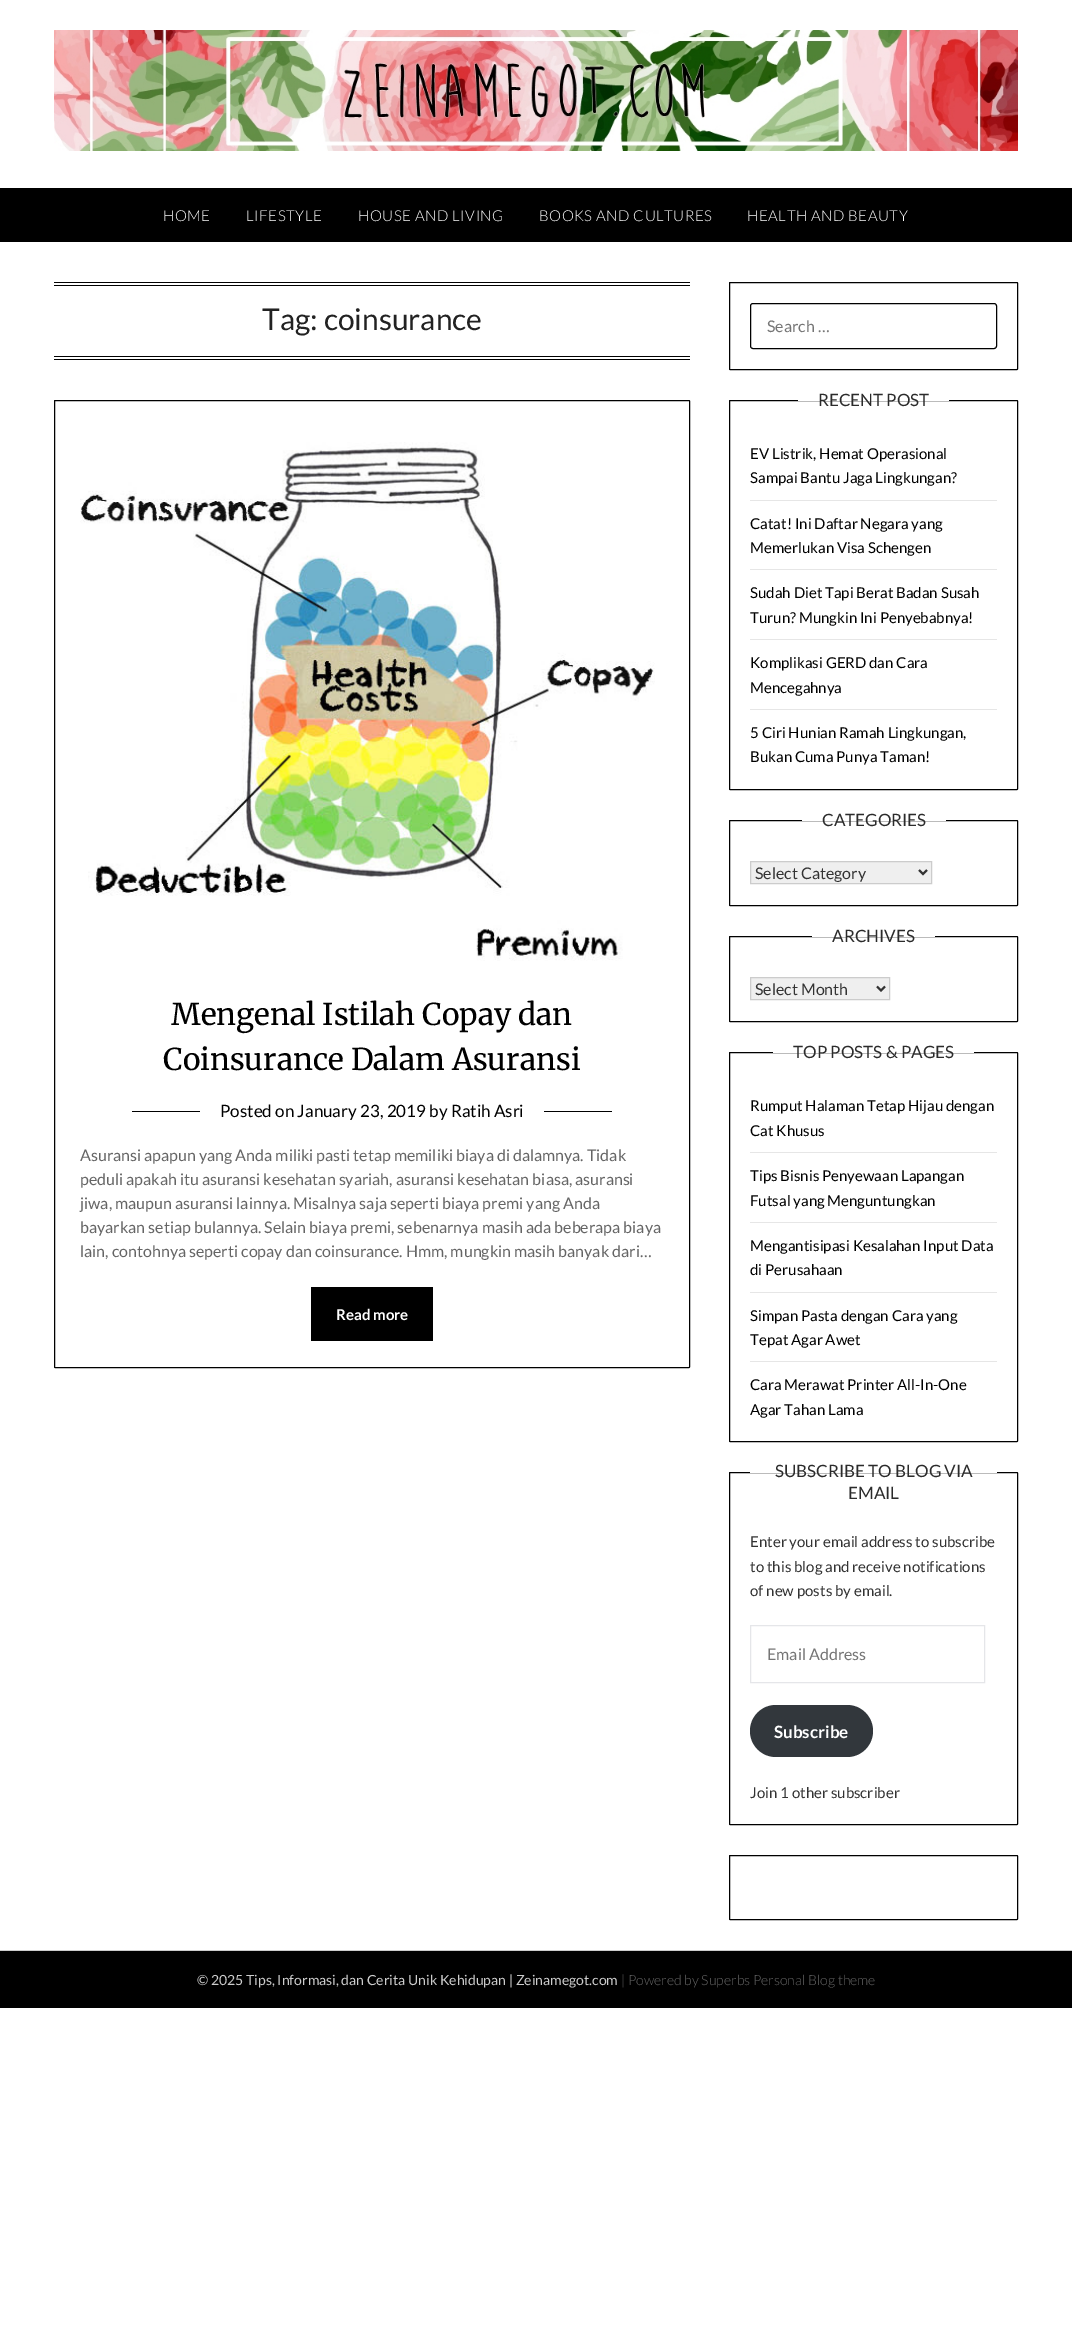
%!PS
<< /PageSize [1072 2326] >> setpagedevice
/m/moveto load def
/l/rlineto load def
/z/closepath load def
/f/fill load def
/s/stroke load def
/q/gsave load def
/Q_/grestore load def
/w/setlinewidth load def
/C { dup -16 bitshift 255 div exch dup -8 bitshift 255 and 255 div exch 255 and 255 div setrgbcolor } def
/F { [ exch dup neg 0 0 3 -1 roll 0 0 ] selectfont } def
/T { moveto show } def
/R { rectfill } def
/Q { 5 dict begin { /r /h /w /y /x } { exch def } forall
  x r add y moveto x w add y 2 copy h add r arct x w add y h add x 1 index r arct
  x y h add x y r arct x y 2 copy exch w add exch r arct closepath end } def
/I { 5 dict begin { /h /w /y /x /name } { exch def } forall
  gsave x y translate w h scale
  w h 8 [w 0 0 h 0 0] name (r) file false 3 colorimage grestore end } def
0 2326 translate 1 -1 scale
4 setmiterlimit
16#FFFFFF C
0 0 1072 2326 R
(1.rgb) 54 30 964 121 I
16#000000 C
0 188 1072 54 R
/Lato-Light 15 F
16#FFFFFF C
163 221 m .5 0 (HOME) ashow
246 221 m .5 0 (LIFESTYLE) ashow
358 221 m .5 0 (HOUSE AND LIVING) ashow
539 221 m .5 0 (BOOKS AND CULTURES) ashow
747 221 m .5 0 (HEALTH AND BEAUTY) ashow
16#000000 C
54 282 636 1 R
54 285 636 1 R
54 356 636 1 R
54 359 636 1 R
/Lato-Regular 30 F
16#222222 C
(Tag: coinsurance) 262 330 T
16#000000 C
54.5 400.5 635 967 .5 Q s
(2.rgb) 80 442 575 519 I
/Merriweather-Regular 30 F
(Mengenal Istilah Copay dan) 171 1025 T
(Coinsurance Dalam Asuransi) 163 1070 T
132 1111 480 1 R
16#FFFFFF C
200 1111 344 1 R
/Lato-Regular 17 F
16#000000 C
(Posted on January 23, 2019 by Ratih Asri) 220 1117 T
/Lato-Regular 16 F
16#656565 C
(Asuransi apapun yang Anda miliki pasti tetap memiliki biaya di dalamnya. Tidak) 80 1161 T
(peduli apakah itu asuransi kesehatan syariah, asuransi kesehatan biasa, asuransi) 80 1185 T
(jiwa, maupun asuransi lainnya. Misalnya saja seperti biaya premi yang Anda) 80 1209 T
(bayarkan setiap bulannya. Selain biaya premi, sebenarnya masih ada beberapa biaya) 80 1233 T
(lain, contohnya seperti copay dan coinsurance. Hmm, mungkin masih banyak dari…) 80 1257 T
16#000000 C
311 1287 122 54 R
/Lato-Bold 15 F
16#FFFFFF C
(Read more) 336 1320 T
16#000000 C
729.5 282.5 288 87 .5 Q s
750.5 303.5 246 45 2.5 Q s
/Lato-Regular 16 F
16#757575 C
(Search …) 767 332 T
16#000000 C
729.5 400.5 288 389 .5 Q s
16#FFFFFF C
798 400 151 1 R
/Lato-Regular 17 F
16#2B2B2B C
(RECENT POST) 818 406 T
16#E6E6E6 C
750 500 247 1 R
/Lato-Regular 15 F
16#000000 C
(EV Listrik, Hemat Operasional) 750 459 T
(Sampai Bantu Jaga Lingkungan?) 750 483 T
16#E6E6E6 C
750 569 247 1 R
16#000000 C
(Catat! Ini Daftar Negara yang) 750 529 T
(Memerlukan Visa Schengen) 750 553 T
16#E6E6E6 C
750 639 247 1 R
16#000000 C
(Sudah Diet Tapi Berat Badan Susah) 750 598 T
(Turun? Mungkin Ini Penyebabnya!) 750 623 T
16#E6E6E6 C
750 709 247 1 R
16#000000 C
(Komplikasi GERD dan Cara) 750 668 T
(Mencegahnya) 750 693 T
(5 Ciri Hunian Ramah Lingkungan,) 750 738 T
(Bukan Cuma Punya Taman!) 750 762 T
729.5 820.5 288 85 .5 Q s
16#FFFFFF C
802 820 144 1 R
/Lato-Regular 17 F
16#2B2B2B C
(CATEGORIES) 822 826 T
16#EFEFEF C
750.5 861.5 m 181 0 l 0 22 l -181 0 l z q f Q_
16#CCCCCC C
s
16#333333 C
2 w
919 870 m 4 4 l 4 -4 l s
/Lato-Regular 16 F
(Select Category) 755 879 T
16#000000 C
1 w
729.5 936.5 288 85 .5 Q s
16#FFFFFF C
812 936 123 1 R
/Lato-Regular 17 F
16#2B2B2B C
(ARCHIVES) 832 942 T
16#EFEFEF C
750.5 977.5 m 139 0 l 0 22 l -139 0 l z q f Q_
16#CCCCCC C
s
16#333333 C
2 w
877 986.5 m 4 4 l 4 -4 l s
/Lato-Regular 16 F
(Select Month) 755 995 T
16#000000 C
1 w
729.5 1052.5 288 389 .5 Q s
16#FFFFFF C
773 1052 201 1 R
/Lato-Regular 17 F
16#2B2B2B C
(TOP POSTS & PAGES) 793 1058 T
16#E6E6E6 C
750 1152 247 1 R
/Lato-Regular 15 F
16#000000 C
(Rumput Halaman Tetap Hijau dengan) 750 1111 T
(Cat Khusus) 750 1136 T
16#E6E6E6 C
750 1222 247 1 R
16#000000 C
(Tips Bisnis Penyewaan Lapangan) 750 1181 T
(Futsal yang Menguntungkan) 750 1206 T
16#E6E6E6 C
750 1292 247 1 R
16#000000 C
(Mengantisipasi Kesalahan Input Data) 750 1251 T
(di Perusahaan) 750 1275 T
16#E6E6E6 C
750 1361 247 1 R
16#000000 C
(Simpan Pasta dengan Cara yang) 750 1321 T
(Tepat Agar Awet) 750 1345 T
(Cara Merawat Printer All-In-One) 750 1390 T
(Agar Tahan Lama) 750 1415 T
729.5 1472.5 288 352 .5 Q s
16#FFFFFF C
750 1472 247 1 R
/Lato-Regular 17 F
16#2B2B2B C
(SUBSCRIBE TO BLOG VIA) 775 1477 T
(EMAIL) 848 1499 T
/Lato-Regular 15 F
16#333333 C
(Enter your email address to subscribe) 750 1547 T
(to this blog and receive notifications) 750 1572 T
(of new posts by email.) 750 1596 T
16#E5E6E9 C
750.5 1625.5 234 57 rectstroke
/Lato-Regular 16 F
16#757575 C
(Email Address) 767 1660 T
16#32373C C
750 1705 123 52 26 Q f
/Lato-Bold 17 F
16#FFFFFF C
(Subscribe) 774 1738 T
/Lato-Regular 15 F
16#333333 C
(Join 1 other subscriber) 750 1798 T
16#000000 C
729.5 1855.5 288 64 .5 Q s
0 1951 1072 57 R
16#CCCCCC C
0 1950 1072 1 R
/Lato-Regular 14 F
(© 2025 Tips, Informasi, dan Cerita Unik Kehidupan | Zeinamegot.com) 197 1985 T
/Lato-Light 14 F
16#656565 C
(| Powered by Superbs Personal Blog theme) 621 1985 T
showpage
